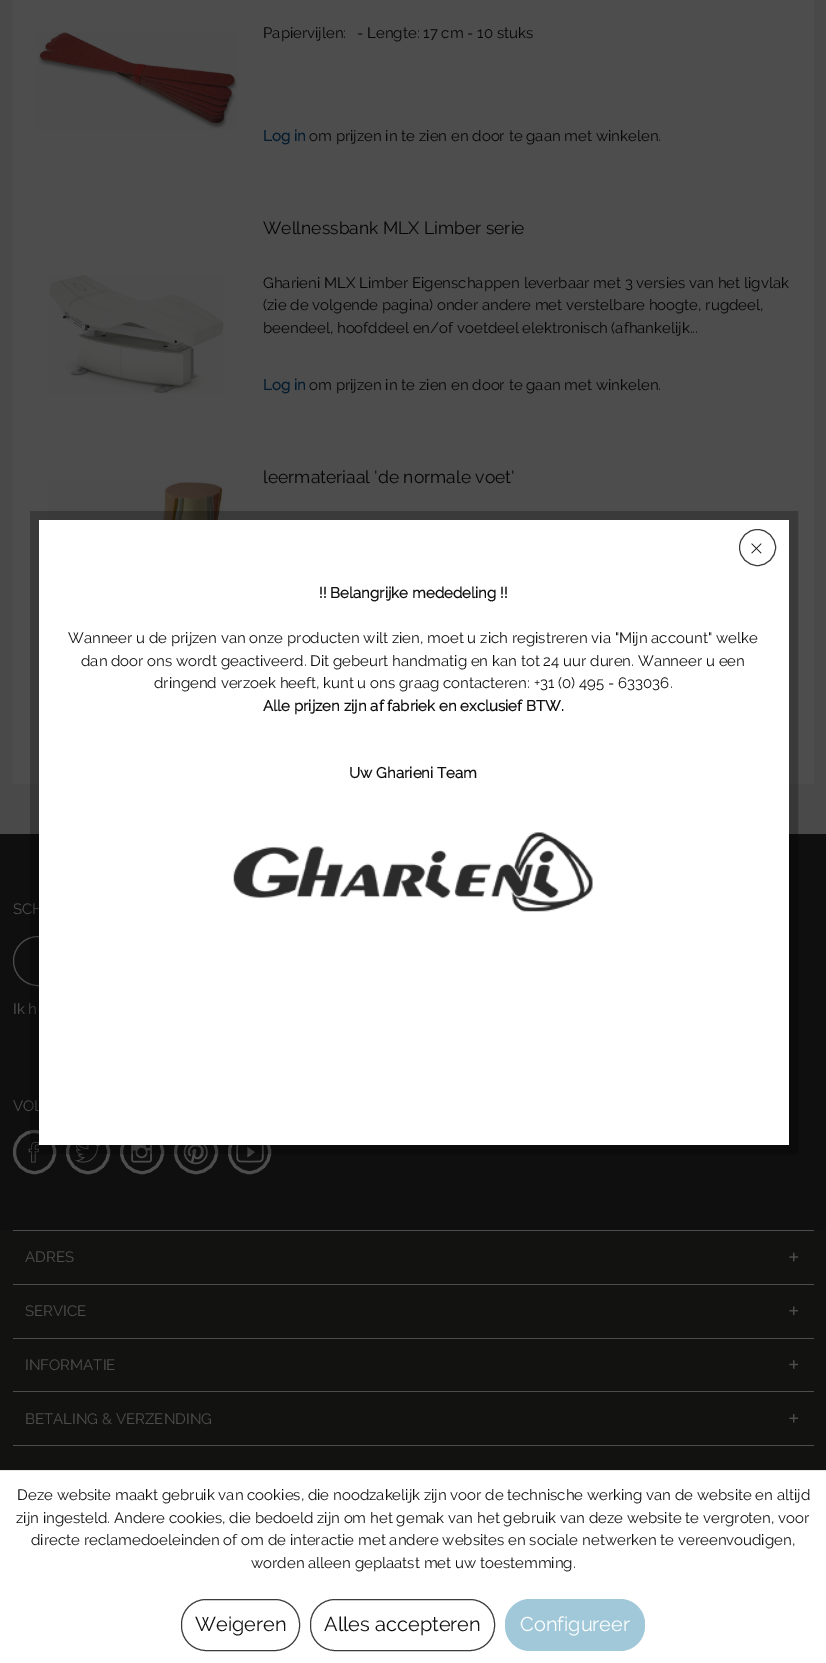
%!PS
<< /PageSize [826 1663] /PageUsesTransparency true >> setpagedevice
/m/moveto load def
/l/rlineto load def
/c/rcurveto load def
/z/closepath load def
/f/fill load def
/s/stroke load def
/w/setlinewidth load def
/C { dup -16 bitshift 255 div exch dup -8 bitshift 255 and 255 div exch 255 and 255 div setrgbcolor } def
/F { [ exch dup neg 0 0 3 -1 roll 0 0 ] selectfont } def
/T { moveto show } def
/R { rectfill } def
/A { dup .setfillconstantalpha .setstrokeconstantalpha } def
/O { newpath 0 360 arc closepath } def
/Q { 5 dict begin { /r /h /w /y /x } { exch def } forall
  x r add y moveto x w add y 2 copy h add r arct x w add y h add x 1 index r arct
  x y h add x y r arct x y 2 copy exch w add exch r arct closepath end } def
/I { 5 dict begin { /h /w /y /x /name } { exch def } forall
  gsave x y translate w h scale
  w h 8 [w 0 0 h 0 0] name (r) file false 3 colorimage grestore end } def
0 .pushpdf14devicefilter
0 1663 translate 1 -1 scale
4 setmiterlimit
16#494949 C
0 0 826 1663 R
16#4D4D4D C
13 0 801 784 R
(1.rgb) 37 32 201 98 I
/Raleway-Regular 15 F
16#050505 C
(Papiervijlen:) 263 38 T
(- Lengte: 17 cm - 10 stuks) 357 38 T
/Raleway-Bold 15 F
16#041C2E C
(Log in) 263 141 T
/Raleway-Regular 15 F
16#050505 C
(om prijzen in te zien en door te gaan met winkelen.) 309 141 T
/Raleway-Regular 17.5 F
(Wellnessbank MLX Limber serie) 263 234 T
(2.rgb) 49 275 175 119 I
/Raleway-Regular 15 F
(Gharieni MLX Limber Eigenschappen leverbaar met 3 versies van het ligvlak) 263 288 T
(\(zie de volgende pagina\) onder andere met verstelbare hoogte, rugdeel,) 263 310 T
(beendeel, hoofddeel en/of voetdeel elektronisch \(afhankelijk...) 263 333 T
/Raleway-Bold 15 F
16#041C2E C
(Log in) 263 390 T
/Raleway-Regular 15 F
16#050505 C
(om prijzen in te zien en door te gaan met winkelen.) 309 390 T
/Raleway-Regular 17.5 F
(leermateriaal 'de normale voet') 263 483 T
(3.rgb) 48 481 176 39 I
16#0F0F0F C
0 834 826 396 R
/Raleway-Regular 15 F
16#4D4D4D C
(SCH) 13 914 T
38 936.5 m 179.5 0 l 0 49 l -179.5 0 l -13.5 0 -24.5 -11 -24.5 -24.5 c 0 -13.5 11 -24.5 24.5 -24.5 c z s
(Ik h) 13 1014 T
(VOL) 13 1111 T
3 w
14.5 1131.5 40 41 20 Q s
(4.rgb) 28 1141 11 22 I
88 1152 20.5 O s
(5.rgb) 75 1145 25 18 I
142 1152 20.5 O s
(6.rgb) 131 1145 21 18 I
196 1152 20.5 O s
(7.rgb) 183 1145 25 20 I
229.5 1131.5 40 41 20 Q s
(8.rgb) 236 1145 28 18 I
16#121211 C
0 1230 826 240 R
16#4D4D4D C
13 1230 801 1 R
(ADRES) 25 1262 T
(9.rgb) 789 1252 10 10 I
13 1284 801 1 R
(SERVICE) 25 1316 T
(10.rgb) 789 1306 10 10 I
13 1338 801 1 R
(INFORMATIE) 25 1370 T
(11.rgb) 789 1360 10 9 I
13 1391 801 1 R
13 1445 801 1 R
(BETALING & VERZENDING) 25 1424 T
(12.rgb) 789 1413 10 10 I
0.25 A
16#000000 C
9 w
34.5 515.5 759 634 rectstroke
1 A
16#FFFFFF C
39 520 750 625 R
16#3C3C3A C
1 w
757.5 547.5 18 O s
(13.rgb) 751 543 11 11 I
/Raleway-Bold 15 F
16#111111 C
(!! Belangrijke mededeling !!) 319 598 T
/Raleway-Regular 15 F
(Wanneer u de prijzen van onze producten wilt zien, moet u zich registreren via "Mijn account" welke) 68 643 T
(dan door ons wordt geactiveerd. Dit gebeurt handmatig en kan tot 24 uur duren. Wanneer u een) 81 666 T
(dringend verzoek heeft, kunt u ons graag contacteren: +31 \(0\) 495 - 633036.) 154 688 T
/Raleway-Bold 15 F
(Alle prijzen zijn af fabriek en exclusief BTW.) 263 711 T
(Uw Gharieni Team) 349 778 T
(14.rgb) 233 832 360 80 I
16#FFFFFF C
0 1471 826 192 R
16#E6E6E6 C
0 1470 826 1 R
/Raleway-Regular 15 F
16#111111 C
(Deze website maakt gebruik van cookies, die noodzakelijk zijn voor de technische werking van de website en altijd) 17 1500 T
(zijn ingesteld. Andere cookies, die bedoeld zijn om het gemak van het gebruik van deze website te vergroten, voor) 16 1523 T
(directe reclamedoeleinden of om de interactie met andere websites en sociale netwerken te vereenvoudigen,) 31 1545 T
(worden alleen geplaatst met uw toestemming.) 251 1568 T
16#3C3C3A C
181.5 1599.5 118 51 24.5 Q s
/Raleway-Regular 20 F
16#111111 C
(Weigeren) 195 1631 T
16#3C3C3A C
310.5 1599.5 184 51 24.5 Q s
16#111111 C
(Alles accepteren) 324 1631 T
16#A0C8D9 C
505 1599 140 52 25 Q f
16#FFFFFF C
(Configureer) 520 1631 T
.poppdf14devicefilter showpage
